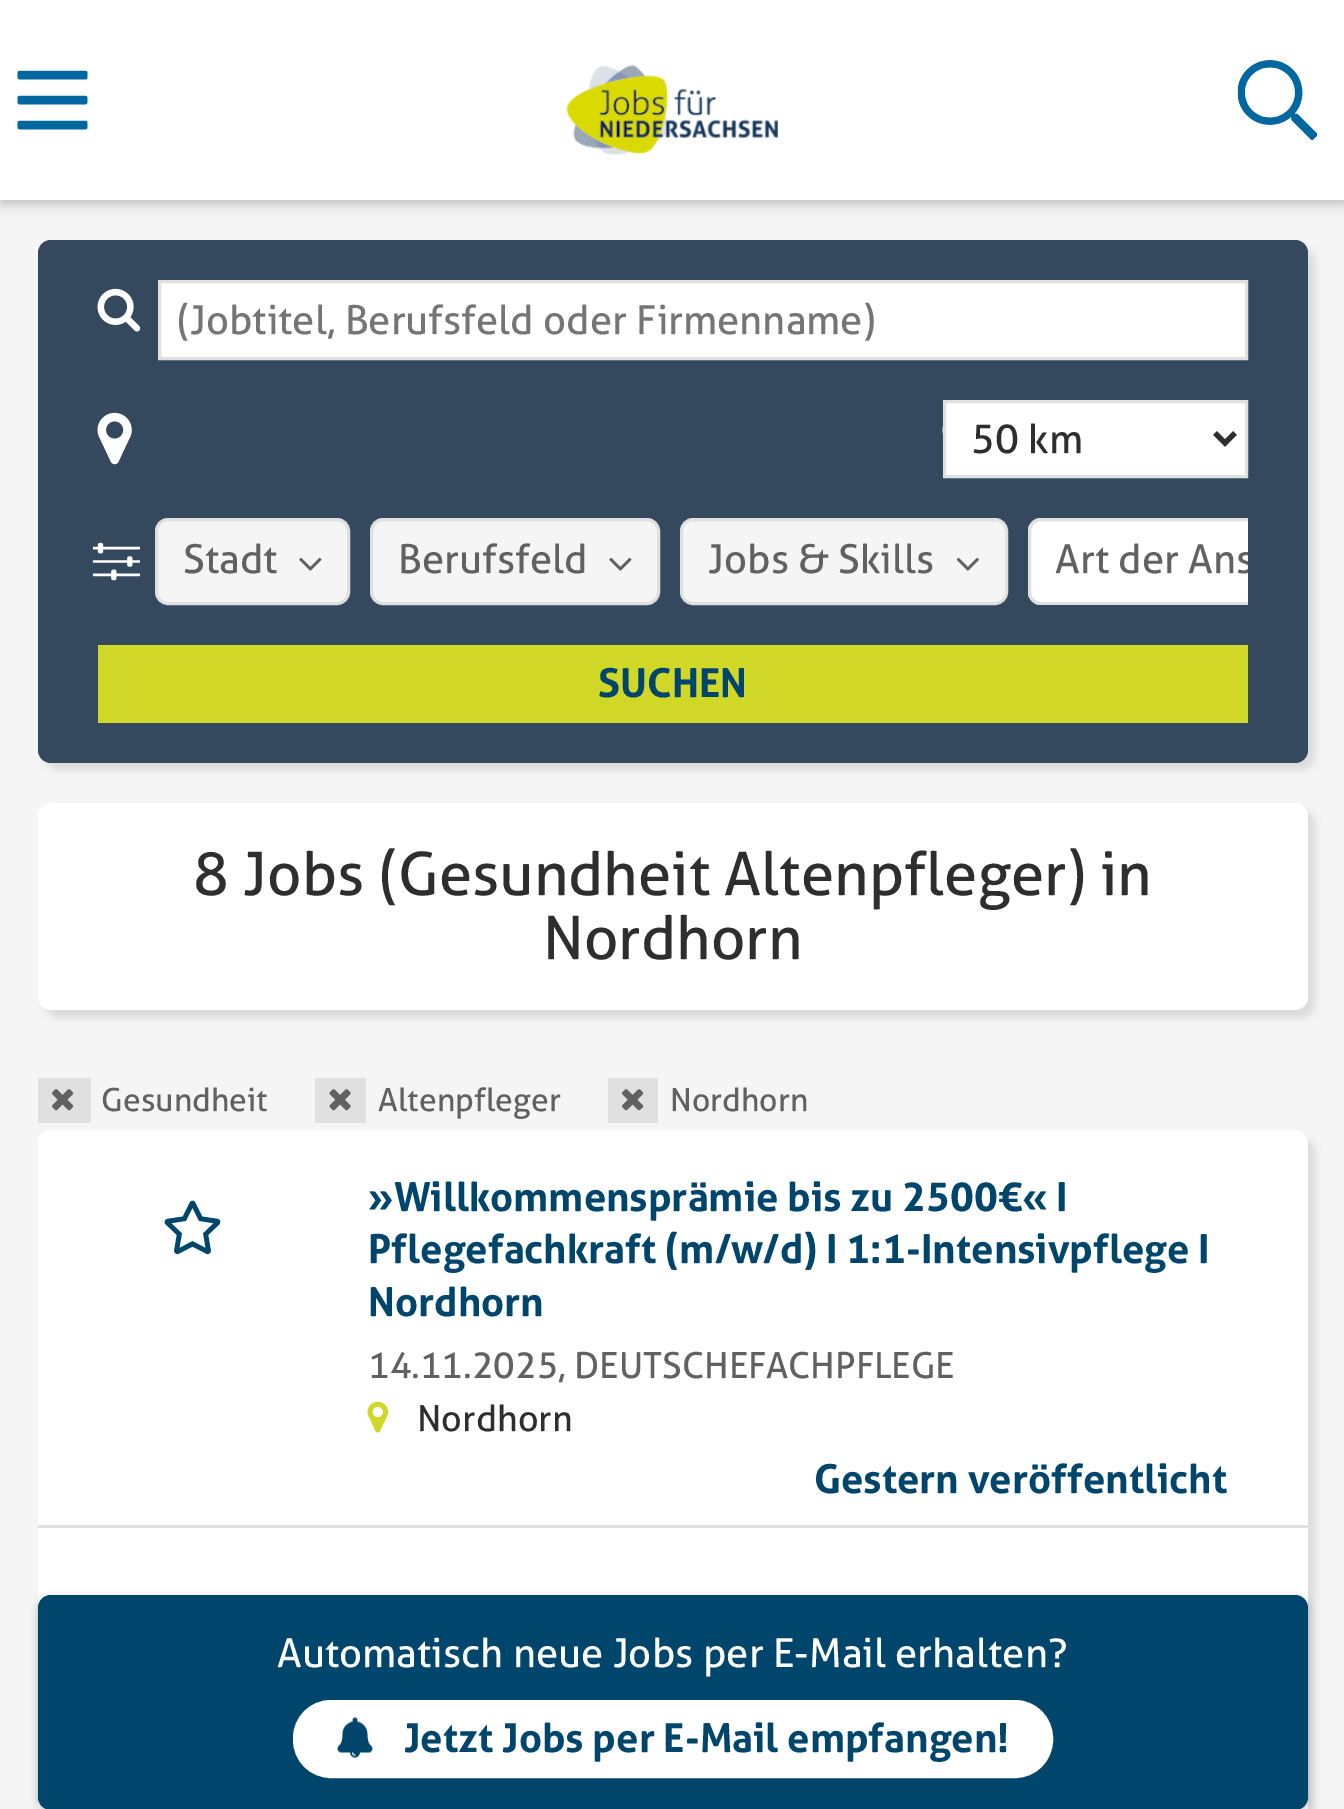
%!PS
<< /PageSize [1344 1809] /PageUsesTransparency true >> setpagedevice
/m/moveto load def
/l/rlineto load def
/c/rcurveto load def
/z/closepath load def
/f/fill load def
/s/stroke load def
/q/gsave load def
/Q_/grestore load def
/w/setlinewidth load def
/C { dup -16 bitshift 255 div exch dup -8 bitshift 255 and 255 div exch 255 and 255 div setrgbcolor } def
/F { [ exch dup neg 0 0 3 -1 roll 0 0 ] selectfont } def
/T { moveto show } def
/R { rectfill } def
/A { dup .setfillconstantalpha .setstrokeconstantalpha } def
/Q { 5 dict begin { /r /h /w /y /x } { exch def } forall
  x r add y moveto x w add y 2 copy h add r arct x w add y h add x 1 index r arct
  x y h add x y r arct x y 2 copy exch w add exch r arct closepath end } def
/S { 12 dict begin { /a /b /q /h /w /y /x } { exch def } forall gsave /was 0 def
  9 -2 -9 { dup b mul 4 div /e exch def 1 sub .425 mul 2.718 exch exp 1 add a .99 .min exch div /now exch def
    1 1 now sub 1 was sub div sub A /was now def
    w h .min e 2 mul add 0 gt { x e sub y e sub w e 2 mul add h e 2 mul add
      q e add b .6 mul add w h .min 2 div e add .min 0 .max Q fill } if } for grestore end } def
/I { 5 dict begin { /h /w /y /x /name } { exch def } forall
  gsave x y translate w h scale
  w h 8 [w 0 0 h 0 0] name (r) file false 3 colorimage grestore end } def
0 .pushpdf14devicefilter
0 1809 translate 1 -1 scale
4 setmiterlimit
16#F5F5F5 C
0 0 1344 1809 R
16#919191 C
0 5 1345 200 0 5 .5 S
16#FFFFFF C
0 0 1344 200 R
(1.rgb) 17 70 71 60 I
(2.rgb) 566 64 212 91 I
(3.rgb) 1237 60 81 80 I
16#000000 C
45 248 1270 522 13 4 .1 S
16#34495E C
38 240 1270 523 13 Q f
(4.rgb) 97 288 44 44 I
16#FFFFFF C
159.5 281.5 m 1087 0 l 0 77 l -1087 0 l z q f Q_
16#E0E0E0 C
3 w
s
/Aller-Regular 40 F
16#757575 C
(\(Jobtitel, Berufsfeld oder Firmenname\)) 177 334 T
(5.rgb) 97 412 35 53 I
(6.rgb) 942 426 1 8 I
16#FFFFFF C
944.5 401.5 m 302 0 l 0 75 l -302 0 l z q f Q_
16#E0E0E0 C
s
16#2E2E2E C
5 w
1215 433 m 10 10 l 10 -10 l s
(50 km) 971 453 T
(7.rgb) 92 542 48 39 I
16#F5F5F5 C
156.5 519.5 192 84 11.5 Q q f Q_
16#E0E0E0 C
3 w
s
16#616161 C
(Stadt) 183 573 T
(8.rgb) 299 557 23 14 I
16#F5F5F5 C
371.5 519.5 287 84 11.5 Q q f Q_
16#E0E0E0 C
s
16#616161 C
(Berufsfeld) 398 573 T
(8.rgb) 609 557 23 14 I
16#F5F5F5 C
681.5 519.5 325 84 11.5 Q q f Q_
16#E0E0E0 C
s
16#616161 C
(Jobs & Skills) 708 573 T
(9.rgb) 956 557 23 14 I
16#FFFFFF C
1041 518 m 207 0 l 0 87 l -207 0 l -7 0 -13 -6 -13 -13 c 0 -61 l 0 -7 6 -13 13 -13 c z f
q
155 518 1093 87 rectclip
16#E0E0E0 C
1029.5 519.5 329 84 11.5 Q s
16#616161 C
(Art der Ans) 1055 573 T
Q_
16#D1D727 C
98 645 1150 78 R
/Aller-Bold 40 F
16#00466C C
(SUCHEN) 598 697 T
16#000000 C
45 810 1270 208 13 4 .1 S
16#FFFFFF C
38 803 1270 207 13 Q f
/Aller-Regular 60 F
16#2E2E2E C
(8 Jobs \(Gesundheit Altenpfleger\) in) 193 895 T
(Nordhorn) 543 959 T
16#E0E0E0 C
38 1078 53 45 R
(10.rgb) 52 1089 22 22 I
/Aller-Regular 32 F
16#616161 C
(Gesundheit) 101 1111 T
16#E0E0E0 C
315 1078 51 45 R
(11.rgb) 329 1089 22 22 I
16#616161 C
(Altenpfleger) 378 1111 T
16#E0E0E0 C
608 1078 50 45 R
(10.rgb) 622 1089 22 22 I
16#616161 C
(Nordhorn) 670 1111 T
16#000000 C
45 1138 1270 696 13 4 .1 S
16#FFFFFF C
38 1130 1270 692 13 Q f
(12.rgb) 164 1200 57 55 I
/Aller-Bold 40 F
16#00466C C
(»Willkommensprämie bis zu 2500€« I) 368 1211 T
(Pflegefachkraft \(m/w/d\) I 1:1-Intensivpflege I) 368 1263 T
(Nordhorn) 368 1316 T
/Aller-Regular 36 F
16#616161 C
(14.11.2025, DEUTSCHEFACHPFLEGE) 368 1378 T
(13.rgb) 367 1401 22 32 I
16#2E2E2E C
(Nordhorn) 417 1431 T
/Aller-Bold 40 F
16#00466C C
(Gestern veröffentlicht) 814 1493 T
16#E0E0E0 C
38 1525 1270 3 R
16#000000 C
38 1598 1270 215 13 4 .25 S
16#00466C C
38 1595 1270 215 13 Q f
/Aller-Regular 40 F
16#FFFFFF C
(Automatisch neue Jobs per E-Mail erhalten?) 277 1667 T
294.5 1701.5 757 75 36.5 Q q f Q_
s
(14.rgb) 337 1717 36 41 I
/Aller-Bold 40 F
16#00466C C
(Jetzt Jobs per E-Mail empfangen!) 404 1752 T
.poppdf14devicefilter showpage
